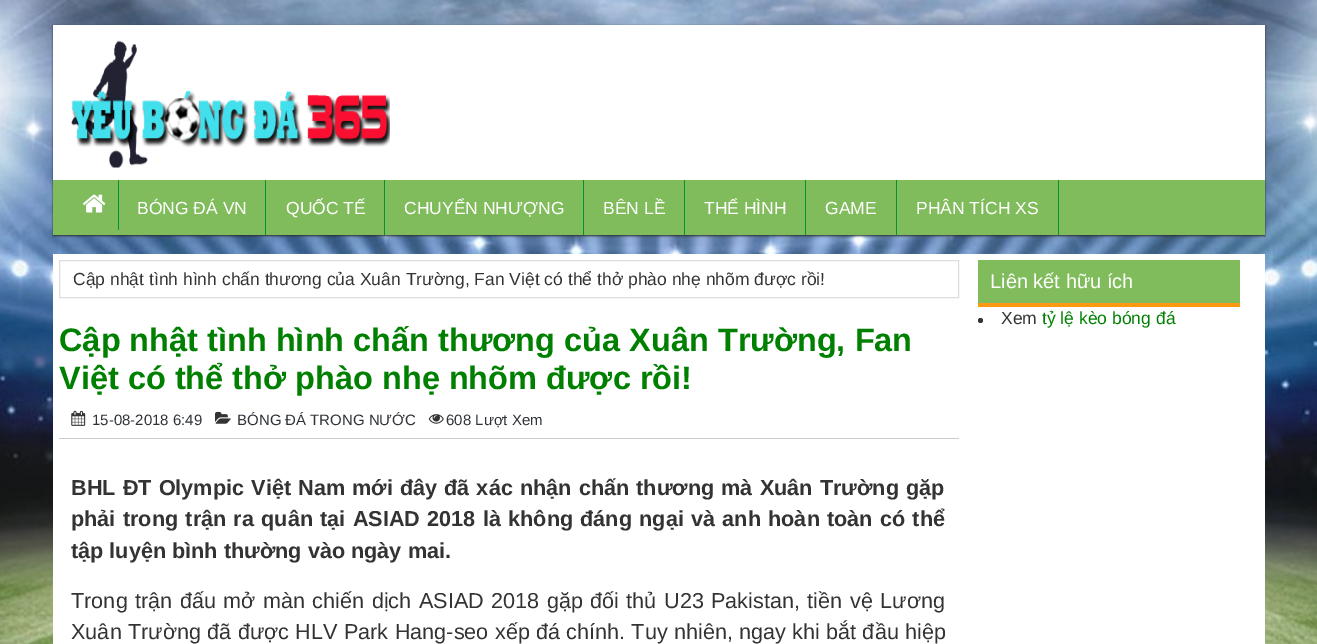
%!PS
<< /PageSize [1317 644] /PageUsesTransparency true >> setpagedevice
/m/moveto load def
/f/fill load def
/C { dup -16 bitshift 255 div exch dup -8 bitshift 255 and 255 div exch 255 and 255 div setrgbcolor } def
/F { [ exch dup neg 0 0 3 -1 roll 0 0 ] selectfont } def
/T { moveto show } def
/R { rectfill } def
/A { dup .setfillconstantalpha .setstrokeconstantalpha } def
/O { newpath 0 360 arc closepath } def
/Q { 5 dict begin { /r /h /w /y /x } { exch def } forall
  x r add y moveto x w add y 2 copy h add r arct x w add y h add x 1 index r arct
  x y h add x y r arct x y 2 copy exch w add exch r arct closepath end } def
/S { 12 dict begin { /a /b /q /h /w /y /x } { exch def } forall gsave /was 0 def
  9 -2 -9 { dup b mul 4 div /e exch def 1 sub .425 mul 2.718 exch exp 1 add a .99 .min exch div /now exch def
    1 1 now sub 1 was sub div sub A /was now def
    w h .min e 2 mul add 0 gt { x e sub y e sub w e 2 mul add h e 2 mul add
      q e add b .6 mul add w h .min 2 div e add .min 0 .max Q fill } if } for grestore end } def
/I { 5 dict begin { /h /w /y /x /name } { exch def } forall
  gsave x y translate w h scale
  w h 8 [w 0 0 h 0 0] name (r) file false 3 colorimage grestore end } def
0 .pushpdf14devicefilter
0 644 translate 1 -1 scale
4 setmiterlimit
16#FFFFFF C
0 0 1317 644 R
(1.rgb) 0 0 1317 644 I
16#292A30 C
53 26 1212 210 0 1 1 S
16#FFFFFF C
53 25 1212 155 R
(2.rgb) 71 40 319 128 I
16#80BC5C C
53 180 1212 55 R
16#009432 C
118 180 1 50 R
(3.rgb) 82 194 24 19 I
265 180 1 55 R
/LiberationSans-Regular 17.5 F
16#FFFFFF C
(BÓNG ĐÁ VN) 137 214 T
16#009432 C
384 180 1 55 R
16#FFFFFF C
(QUỐC TẾ) 286 214 T
16#009432 C
583 180 1 55 R
16#FFFFFF C
(CHUYỂN NHƯỢNG) 404 214 T
16#009432 C
684 180 1 55 R
16#FFFFFF C
(BÊN LỀ) 603 214 T
16#009432 C
805 180 1 55 R
16#FFFFFF C
(THỂ HÌNH) 704 214 T
16#009432 C
896 180 1 55 R
16#FFFFFF C
(GAME) 825 214 T
16#009432 C
1058 180 1 55 R
16#FFFFFF C
(PHÂN TÍCH XS) 916 214 T
53 254 1212 390 R
16#DDDDDD C
59.5 260.5 899 37 rectstroke
16#333333 C
(Cập nhật tình hình chấn thương của Xuân Trường, Fan Việt có thể thở phào nhẹ nhõm được rồi!) 73 285 T
/LiberationSans-Bold 32.5 F
16#008000 C
(Cập nhật tình hình chấn thương của Xuân Trường, Fan) 59 351 T
(Việt có thể thở phào nhẹ nhõm được rồi!) 59 389 T
16#CCCCCC C
59 438 900 1 R
(4.rgb) 71 410 15 16 I
/LiberationSans-Regular 15 F
16#2F3239 C
(15-08-2018 6:49) 92 425 T
(5.rgb) 215 411 16 13 I
(BÓNG ĐÁ TRONG NƯỚC) 237 425 T
(6.rgb) 428 414 16 10 I
(608 Lượt Xem) 446 425 T
/LiberationSans-Bold 21.65 F
16#333333 C
71 495 m 1.1 0 32 (BHL ĐT Olympic Việt Nam mới đây đã xác nhận chấn thương mà Xuân Trường gặp) widthshow
71 526 m 1.25 0 32 (phải trong trận ra quân tại ASIAD 2018 là không đáng ngại và anh hoàn toàn có thể) widthshow
(tập luyện bình thường vào ngày mai.) 71 558 T
/LiberationSans-Regular 21.65 F
71 608 m 1.4 0 32 (Trong trận đấu mở màn chiến dịch ASIAD 2018 gặp đối thủ U23 Pakistan, tiền vệ Lương) widthshow
71 639 m .25 0 32 (Xuân Trường đã được HLV Park Hang-seo xếp đá chính. Tuy nhiên, ngay khi bắt đầu hiệp) widthshow
16#80BC5C C
978 260 262 43 R
16#FF9912 C
978 303 262 4 R
/LiberationSans-Regular 20 F
16#FFFFFF C
(Liên kết hữu ích) 990 288 T
16#333333 C
980.5 320.5 2.5 O f
/LiberationSans-Regular 17.5 F
(Xem) 1001 324 T
16#008000 C
(tỷ lệ kèo bóng đá) 1042 324 T
.poppdf14devicefilter showpage
